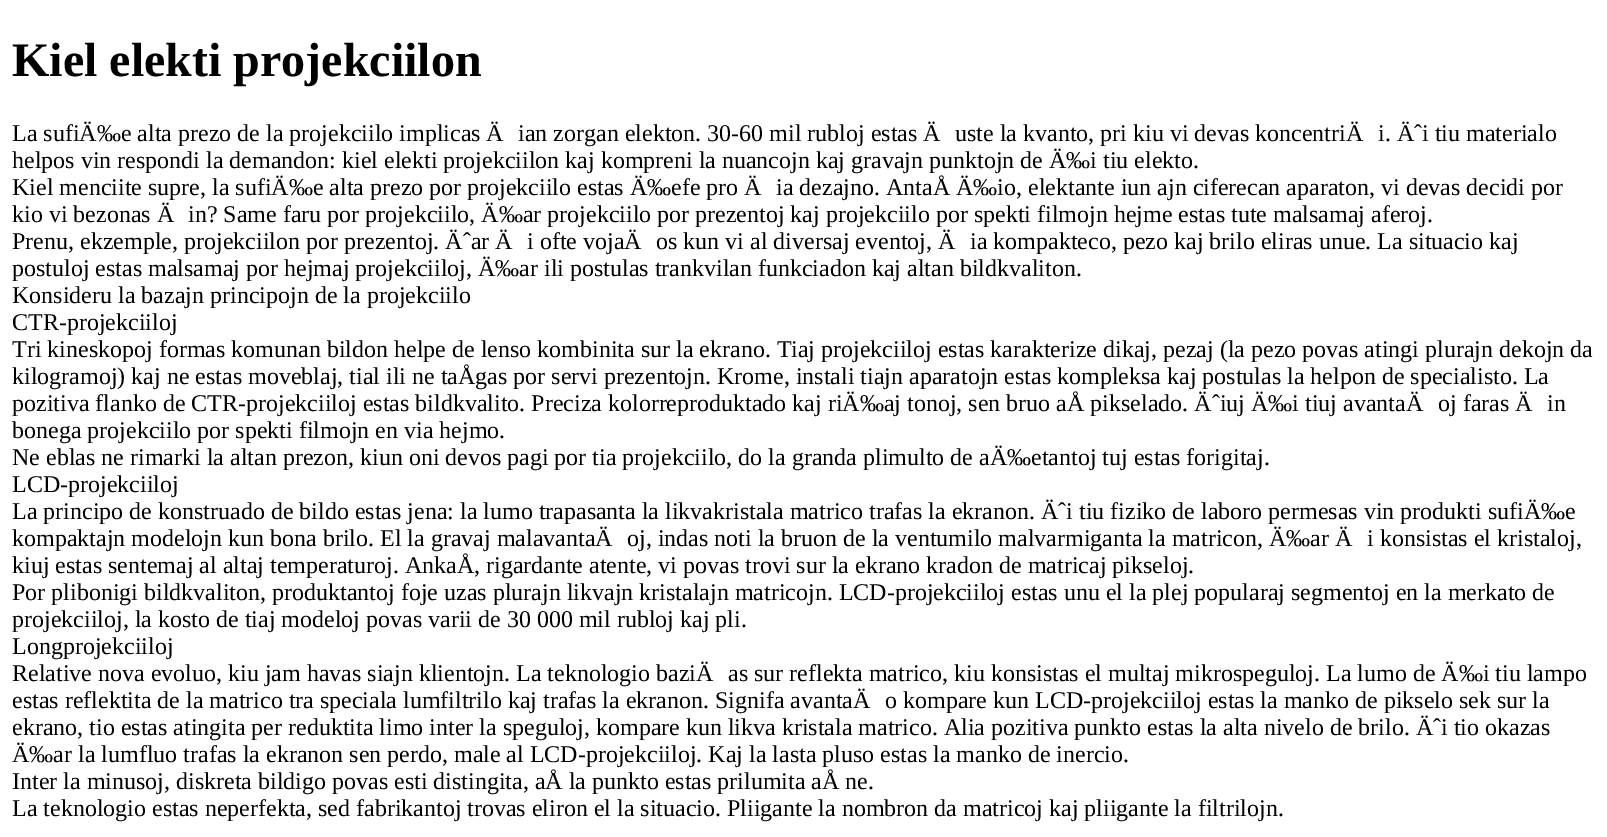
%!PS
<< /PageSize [1607 837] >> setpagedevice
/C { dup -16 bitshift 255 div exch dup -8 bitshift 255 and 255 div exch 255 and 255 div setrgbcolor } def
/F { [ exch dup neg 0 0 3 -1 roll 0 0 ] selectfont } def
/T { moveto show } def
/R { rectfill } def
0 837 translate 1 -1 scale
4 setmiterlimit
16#FFFFFF C
0 0 1607 837 R
/LiberationSerif-Bold 48 F
16#000000 C
(Kiel elekti projekciilon) 12 76 T
/LiberationSerif-Regular 24 F
(La sufiÄ‰e alta prezo de la projekciilo implicas Ä) 12 141 T
(ian zorgan elekton. 30-60 mil rubloj estas Ä) 518 141 T
(uste la kvanto, pri kiu vi devas koncentriÄ) 955 141 T
(i. Äˆi tiu materialo) 1378 141 T
(helpos vin respondi la demandon: kiel elekti projekciilon kaj kompreni la nuancojn kaj gravajn punktojn de Ä‰i tiu elekto.) 12 168 T
(Kiel menciite supre, la sufiÄ‰e alta prezo por projekciilo estas Ä‰efe pro Ä) 12 195 T
(ia dezajno. AntaÅ Ä‰io, elektante iun ajn ciferecan aparaton, vi devas decidi por) 776 195 T
(kio vi bezonas Ä) 12 222 T
(in? Same faru por projekciilo, Ä‰ar projekciilo por prezentoj kaj projekciilo por spekti filmojn hejme estas tute malsamaj aferoj.) 188 222 T
(Prenu, ekzemple, projekciilon por prezentoj. Äˆar Ä) 12 249 T
(i ofte vojaÄ) 527 249 T
(os kun vi al diversaj eventoj, Ä) 656 249 T
(ia kompakteco, pezo kaj brilo eliras unue. La situacio kaj) 970 249 T
(postuloj estas malsamaj por hejmaj projekciiloj, Ä‰ar ili postulas trankvilan funkciadon kaj altan bildkvaliton.) 12 276 T
(Konsideru la bazajn principojn de la projekciilo) 12 303 T
(CTR-projekciiloj) 12 330 T
(Tri kineskopoj formas komunan bildon helpe de lenso kombinita sur la ekrano. Tiaj projekciiloj estas karakterize dikaj, pezaj \(la pezo povas atingi plurajn dekojn da) 12 357 T
(kilogramoj\) kaj ne estas moveblaj, tial ili ne taÅgas por servi prezentojn. Krome, instali tiajn aparatojn estas kompleksa kaj postulas la helpon de specialisto. La) 12 384 T
(pozitiva flanko de CTR-projekciiloj estas bildkvalito. Preciza kolorreproduktado kaj riÄ‰aj tonoj, sen bruo aÅ pikselado. Äˆiuj Ä‰i tiuj avantaÄ) 12 411 T
(oj faras Ä) 1438 411 T
(in) 1547 411 T
(bonega projekciilo por spekti filmojn en via hejmo.) 12 438 T
(Ne eblas ne rimarki la altan prezon, kiun oni devos pagi por tia projekciilo, do la granda plimulto de aÄ‰etantoj tuj estas forigitaj.) 12 465 T
(LCD-projekciiloj) 12 492 T
(La principo de konstruado de bildo estas jena: la lumo trapasanta la likvakristala matrico trafas la ekranon. Äˆi tiu fiziko de laboro permesas vin produkti sufiÄ‰e) 12 519 T
(kompaktajn modelojn kun bona brilo. El la gravaj malavantaÄ) 12 546 T
(oj, indas noti la bruon de la ventumilo malvarmiganta la matricon, Ä‰ar Ä) 627 546 T
(i konsistas el kristaloj,) 1367 546 T
(kiuj estas sentemaj al altaj temperaturoj. AnkaÅ, rigardante atente, vi povas trovi sur la ekrano kradon de matricaj pikseloj.) 12 573 T
(Por plibonigi bildkvaliton, produktantoj foje uzas plurajn likvajn kristalajn matricojn. LCD-projekciiloj estas unu el la plej popularaj segmentoj en la merkato de) 12 600 T
(projekciiloj, la kosto de tiaj modeloj povas varii de 30 000 mil rubloj kaj pli.) 12 627 T
(Longprojekciiloj) 12 654 T
(Relative nova evoluo, kiu jam havas siajn klientojn. La teknologio baziÄ) 12 681 T
(as sur reflekta matrico, kiu konsistas el multaj mikrospeguloj. La lumo de Ä‰i tiu lampo) 728 681 T
(estas reflektita de la matrico tra speciala lumfiltrilo kaj trafas la ekranon. Signifa avantaÄ) 12 708 T
(o kompare kun LCD-projekciiloj estas la manko de pikselo sek sur la) 885 708 T
(ekrano, tio estas atingita per reduktita limo inter la speguloj, kompare kun likva kristala matrico. Alia pozitiva punkto estas la alta nivelo de brilo. Äˆi tio okazas) 12 735 T
(Ä‰ar la lumfluo trafas la ekranon sen perdo, male al LCD-projekciiloj. Kaj la lasta pluso estas la manko de inercio.) 12 762 T
(Inter la minusoj, diskreta bildigo povas esti distingita, aÅ la punkto estas prilumita aÅ ne.) 12 789 T
(La teknologio estas neperfekta, sed fabrikantoj trovas eliron el la situacio. Pliigante la nombron da matricoj kaj pliigante la filtrilojn.) 12 816 T
showpage
